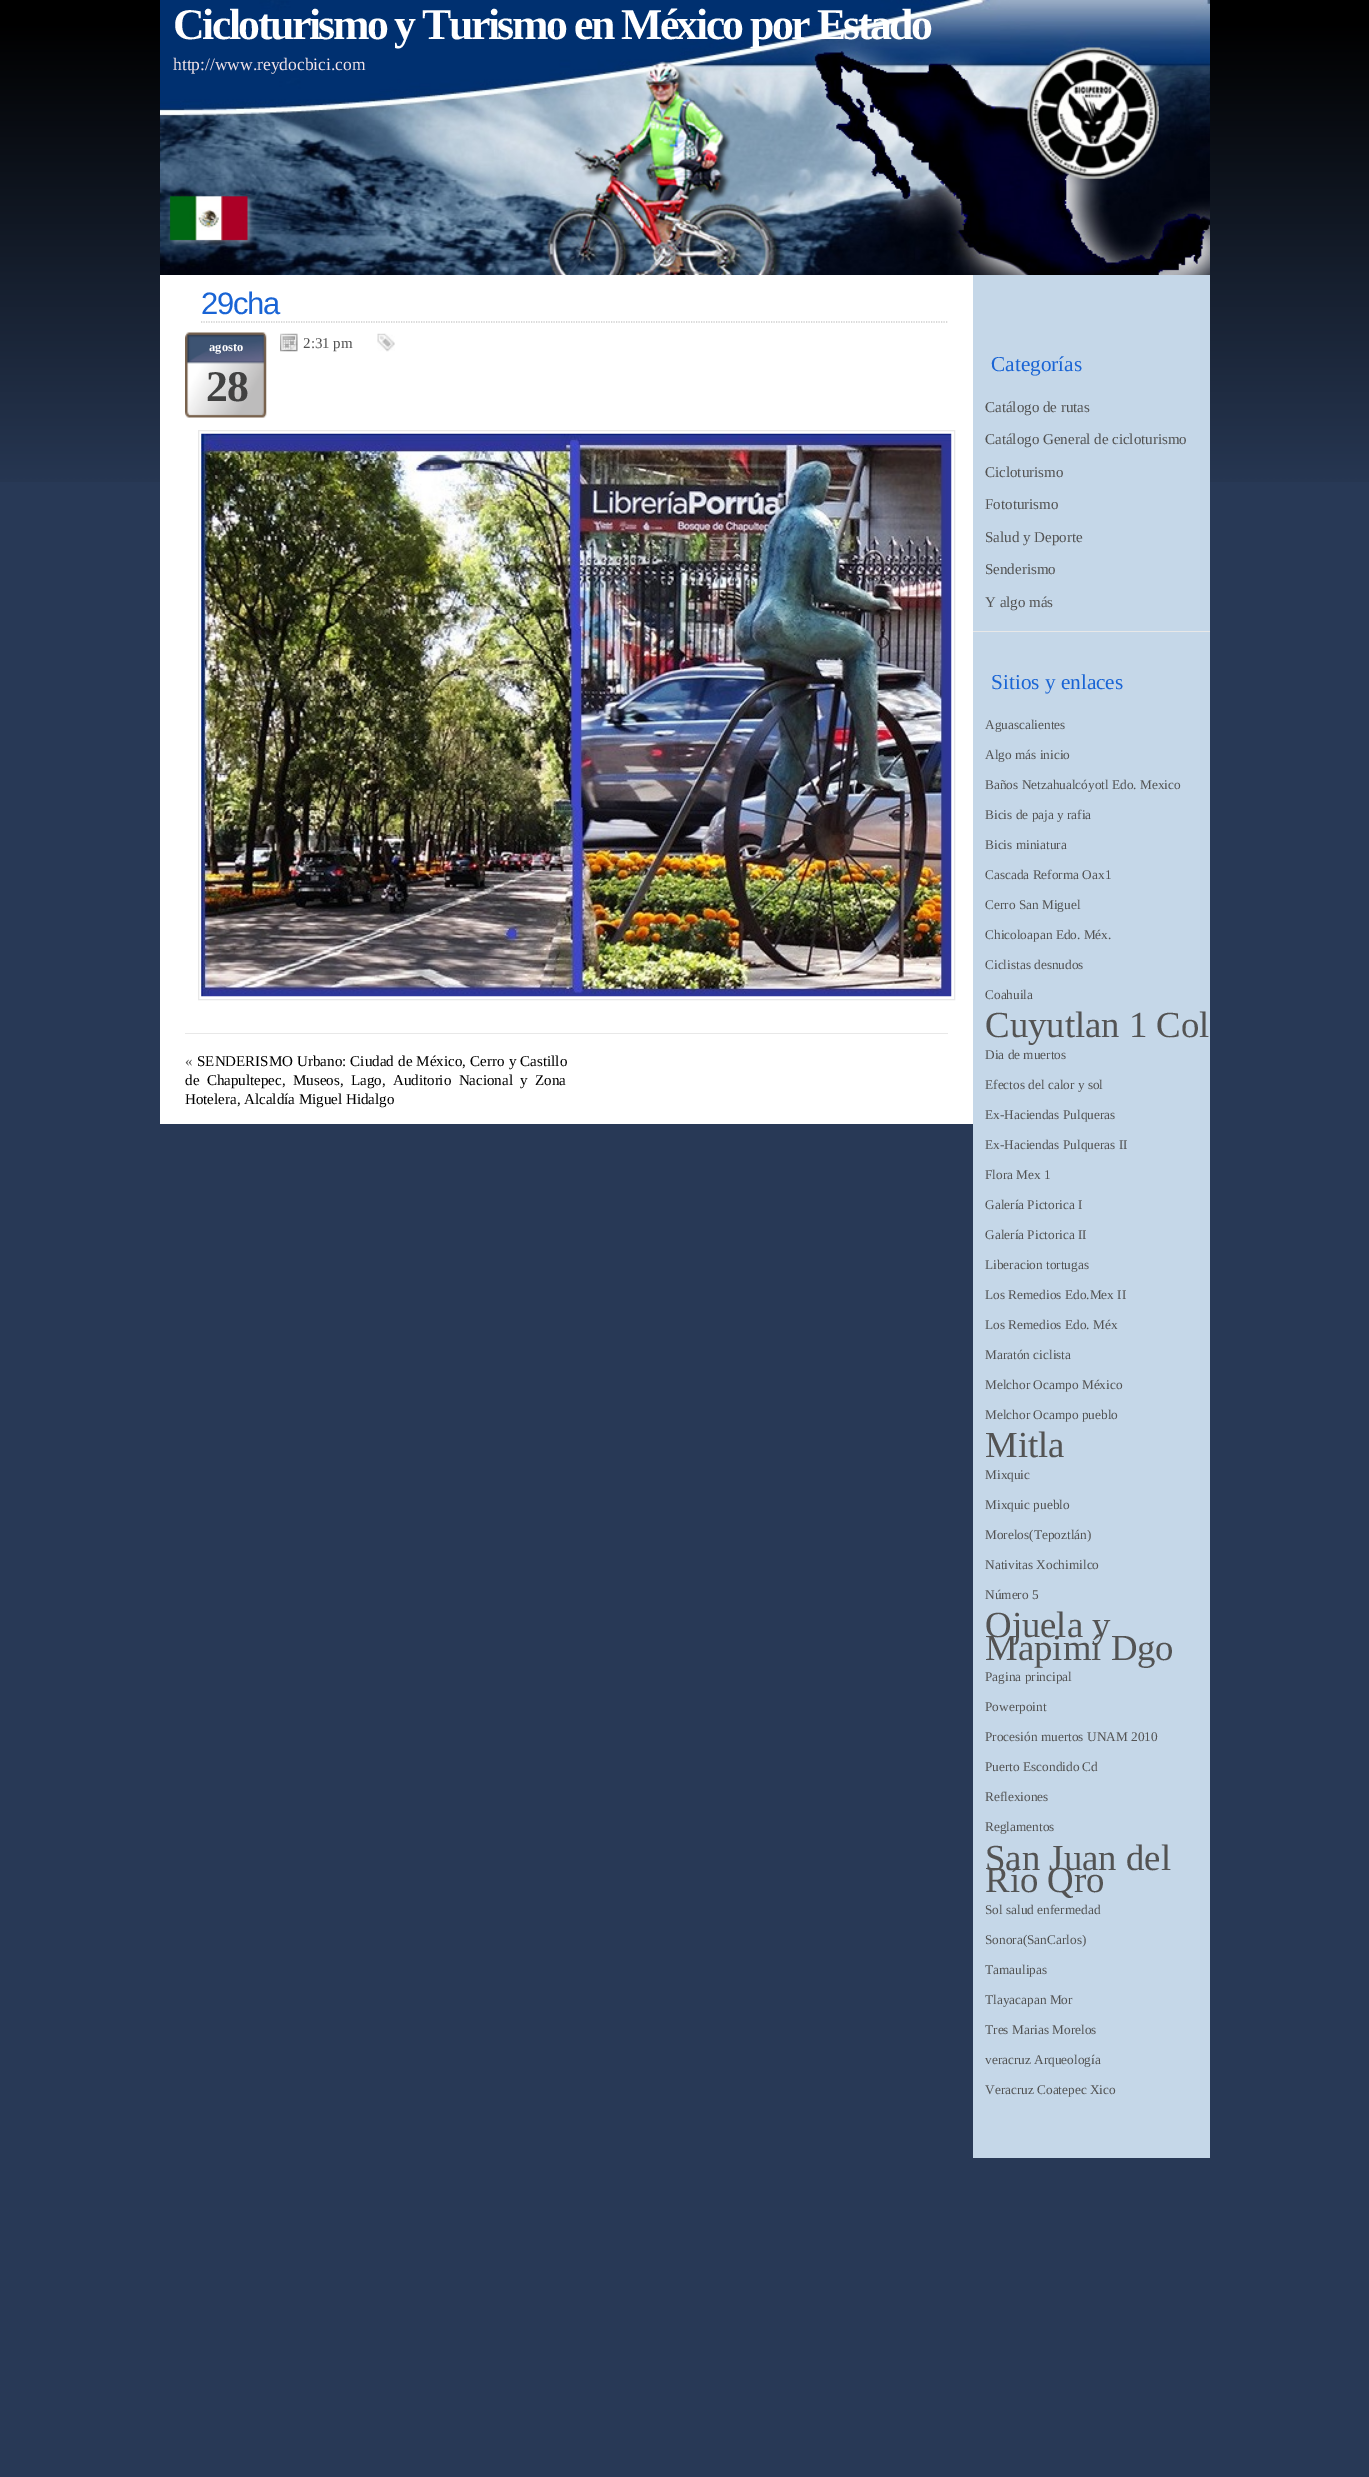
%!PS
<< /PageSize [1369 2477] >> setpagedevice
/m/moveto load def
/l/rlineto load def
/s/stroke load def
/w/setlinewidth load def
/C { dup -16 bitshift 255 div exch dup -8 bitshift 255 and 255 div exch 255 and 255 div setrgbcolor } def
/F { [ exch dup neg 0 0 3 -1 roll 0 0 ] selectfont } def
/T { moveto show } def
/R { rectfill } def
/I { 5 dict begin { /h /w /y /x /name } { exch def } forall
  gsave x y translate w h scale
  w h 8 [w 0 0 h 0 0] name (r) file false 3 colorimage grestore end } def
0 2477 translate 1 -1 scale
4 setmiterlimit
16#283956 C
0 0 1369 2477 R
(1.rgb) 0 0 1369 482 I
(2.rgb) 160 0 1050 275 I
/LiberationSerif-Bold 43.75 F
16#FFFFFF C
173 39 m -2.5 0 (Cicloturismo y Turismo en México por Estado) ashow
/LiberationSerif-Regular 17.5 F
16#F4E4E9 C
(http://www.reydocbici.com) 173 70 T
16#FFFFFF C
160 275 813 849 R
16#E8E8E8 C
185 1033 763 1 R
16#CCCCCC C
1.2 w
[1.25 1.25] 0 setdash
201 322 m 746.5 0 l s
/LiberationSans-Regular 31 F
16#1964D5 C
201 314 m -1.25 0 (29cha) ashow
(3.rgb) 185 332 82 86 I
/LiberationSerif-Bold 12.5 F
16#FFFFFF C
(agosto) 209 351 T
/LiberationSerif-Bold 43.75 F
16#414141 C
206 401 m -1.25 0 (28) ashow
(4.rgb) 280 333 18 19 I
/LiberationSerif-Regular 15 F
16#535353 C
(2:31 pm) 303 348 T
(5.rgb) 377 333 18 19 I
16#E8E8E8 C
1 w
[] 0 setdash
198.5 430.5 756 569 rectstroke
(6.rgb) 201 433 751 564 I
16#535353 C
(«) 185 1066 T
16#000000 C
197 1066 m .5 0 32 (SENDERISMO Urbano: Ciudad de México, Cerro y Castillo) widthshow
185 1085 m 3.75 0 32 (de Chapultepec, Museos, Lago, Auditorio Nacional y Zona) widthshow
(Hotelera, Alcaldía Miguel Hidalgo) 185 1104 T
16#C5D7E8 C
973 275 237 1883 R
/LiberationSerif-Regular 21.25 F
16#1964D5 C
(Categorías) 991 371 T
16#E8E8E8 C
973 631 237 1 R
/LiberationSerif-Regular 15 F
16#535353 C
(Catálogo de rutas) 985 412 T
(Catálogo General de cicloturismo) 985 444 T
(Cicloturismo) 985 477 T
(Fototurismo) 985 509 T
(Salud y Deporte) 985 542 T
(Senderismo) 985 574 T
(Y algo más) 985 607 T
/LiberationSerif-Regular 21.25 F
16#1964D5 C
(Sitios y enlaces) 991 689 T
/LiberationSerif-Regular 13.3 F
16#535353 C
(Aguascalientes) 985 729 T
(Algo más inicio) 985 759 T
(Baños Netzahualcóyotl Edo. Mexico) 985 789 T
(Bicis de paja y rafia) 985 819 T
(Bicis miniatura) 985 849 T
(Cascada Reforma Oax1) 985 879 T
(Cerro San Miguel) 985 909 T
(Chicoloapan Edo. Méx.) 985 939 T
(Ciclistas desnudos) 985 969 T
(Coahuila) 985 999 T
/LiberationSerif-Regular 36.75 F
(Cuyutlan 1 Col) 985 1037 T
/LiberationSerif-Regular 13.3 F
(Dia de muertos) 985 1059 T
(Efectos del calor y sol) 985 1089 T
(Ex-Haciendas Pulqueras) 985 1119 T
(Ex-Haciendas Pulqueras II) 985 1149 T
(Flora Mex 1) 985 1179 T
(Galería Pictorica I) 985 1209 T
(Galería Pictorica II) 985 1239 T
(Liberacion tortugas) 985 1269 T
(Los Remedios Edo.Mex II) 985 1299 T
(Los Remedios Edo. Méx) 985 1329 T
(Maratón ciclista) 985 1359 T
(Melchor Ocampo México) 985 1389 T
(Melchor Ocampo pueblo) 985 1419 T
/LiberationSerif-Regular 36.75 F
(Mitla) 985 1457 T
/LiberationSerif-Regular 13.3 F
(Mixquic) 985 1479 T
(Mixquic pueblo) 985 1509 T
(Morelos\(Tepoztlán\)) 985 1539 T
(Nativitas Xochimilco) 985 1569 T
(Número 5) 985 1599 T
/LiberationSerif-Regular 36.75 F
(Ojuela y) 985 1637 T
(Mapimí Dgo) 985 1660 T
/LiberationSerif-Regular 13.3 F
(Pagina principal) 985 1681 T
(Powerpoint) 985 1711 T
(Procesión muertos UNAM 2010) 985 1741 T
(Puerto Escondido Cd) 985 1771 T
(Reflexiones) 985 1801 T
(Reglamentos) 985 1831 T
/LiberationSerif-Regular 36.75 F
(San Juan del) 985 1870 T
(Río Qro) 985 1892 T
/LiberationSerif-Regular 13.3 F
(Sol salud enfermedad) 985 1914 T
(Sonora\(SanCarlos\)) 985 1944 T
(Tamaulipas) 985 1974 T
(Tlayacapan Mor) 985 2004 T
(Tres Marias Morelos) 985 2034 T
(veracruz Arqueología) 985 2064 T
(Veracruz Coatepec Xico) 985 2094 T
showpage
